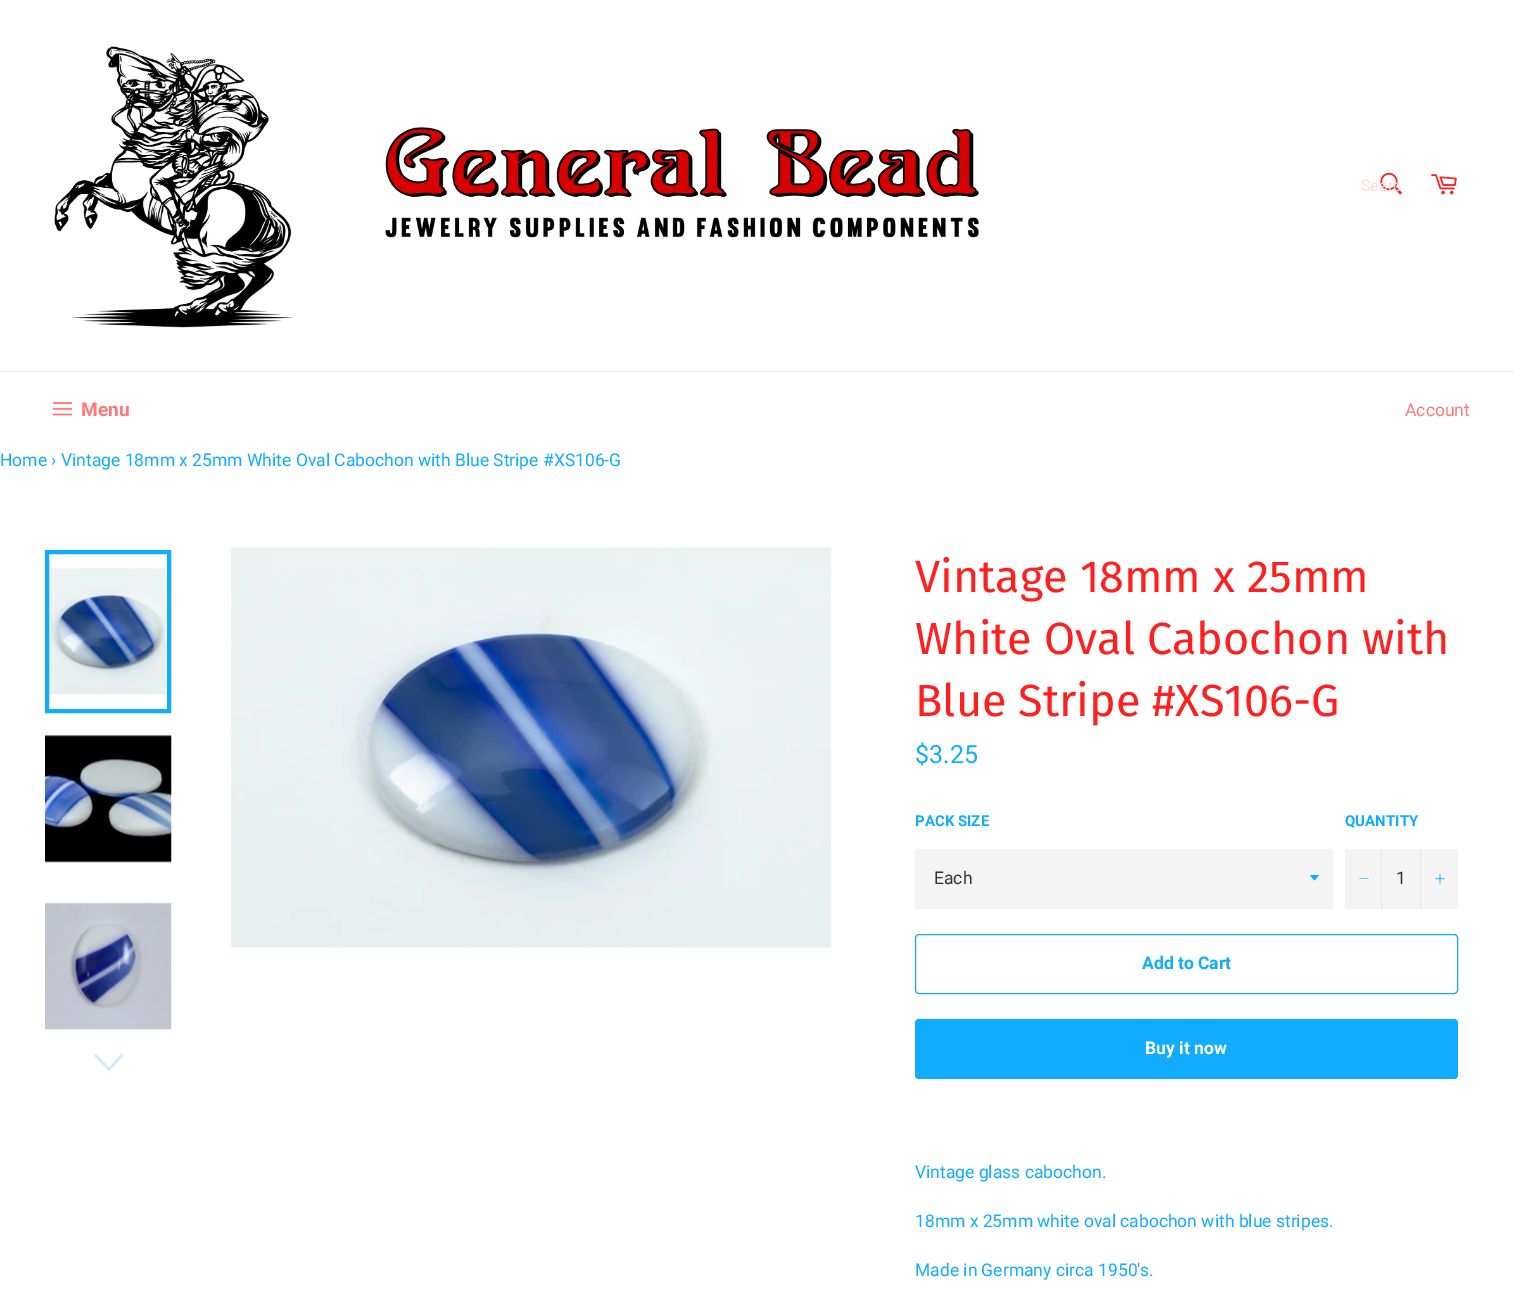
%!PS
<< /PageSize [1514 1302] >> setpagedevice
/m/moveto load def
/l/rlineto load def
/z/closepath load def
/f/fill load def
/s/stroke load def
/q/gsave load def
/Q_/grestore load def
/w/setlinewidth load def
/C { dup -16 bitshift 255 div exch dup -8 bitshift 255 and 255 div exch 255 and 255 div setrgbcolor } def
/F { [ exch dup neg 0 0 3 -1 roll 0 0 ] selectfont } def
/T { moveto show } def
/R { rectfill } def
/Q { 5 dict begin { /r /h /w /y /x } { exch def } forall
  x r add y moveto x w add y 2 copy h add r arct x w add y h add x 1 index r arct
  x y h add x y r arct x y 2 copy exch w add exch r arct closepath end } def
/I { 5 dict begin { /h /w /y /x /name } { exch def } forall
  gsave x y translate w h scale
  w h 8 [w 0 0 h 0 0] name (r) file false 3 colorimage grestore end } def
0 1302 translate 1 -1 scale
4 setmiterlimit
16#FFFFFF C
0 0 1514 1302 R
(1.rgb) 54 46 925 282 I
(2.rgb) 1380 172 22 23 I
q
1361 176 40 19 rectclip
/Roboto-Regular 16 F
16#FFDADA C
(Searc) 1361 191 T
Q_
(3.rgb) 1431 174 26 21 I
16#F2F2F2 C
0 371 1514 1 R
(4.rgb) 52 402 21 14 I
/Roboto-Bold 19 F
16#FF7979 C
(Menu) 81 416 T
/Roboto-Regular 17.5 F
(Account) 1405 416 T
16#12ACFF C
(Home › Vintage 18mm x 25mm White Oval Cabochon with Blue Stripe #XS106-G) 0 466 T
(5.rgb) 49 568 123 127 I
4 w
47 552 122 159 rectstroke
(6.rgb) 45 735 127 128 I
(7.rgb) 45 902 127 128 I
16#D0EEFF C
121.5 1053.5 m 2 2 l -14.5 16 l -15 -16 l 2 -2 l 13 14 l z f
(8.rgb) 231 547 601 401 I
/FiraSans-Regular 45 F
16#FF1F1F C
(Vintage 18mm x 25mm) 915 592 T
(White Oval Cabochon with) 915 654 T
(Blue Stripe #XS106-G) 915 716 T
/Roboto-Regular 25 F
16#12ACFF C
($3.25) 915 763 T
/Roboto-Bold 15 F
(PACK SIZE) 915 826 T
16#F4F4F4 C
915 849 418 60 R
16#12ACFF C
1310 875 m 4.5 5.5 l 4.5 -5.5 l z f
/Roboto-Regular 17.5 F
16#333333 C
(Each) 934 884 T
/Roboto-Bold 15 F
16#12ACFF C
(QUANTITY) 1345 826 T
16#F4F4F4 C
1345 849 113 60 R
16#E7E7E7 C
1381 849 1 60 R
16#12ACFF C
1368.5 878.5 m 0 .5 l -9.5 0 l 0 -.5 l z eofill
/Roboto-Regular 17.5 F
16#333333 C
(1) 1396 884 T
16#E7E7E7 C
1420 849 1 60 R
(9.rgb) 1435 874 10 10 I
16#12ACFF C
1 w
915.5 934.5 542 59 3.5 Q s
/Roboto-Bold 17.5 F
(Add to Cart) 1142 969 T
915 1019 543 60 4 Q f
16#FFFFFF C
(Buy it now) 1145 1054 T
/Roboto-Regular 17.5 F
16#12ACFF C
(Vintage glass cabochon.) 915 1178 T
(18mm x 25mm white oval cabochon with blue stripes.) 915 1227 T
(Made in Germany circa 1950's.) 915 1276 T
showpage
